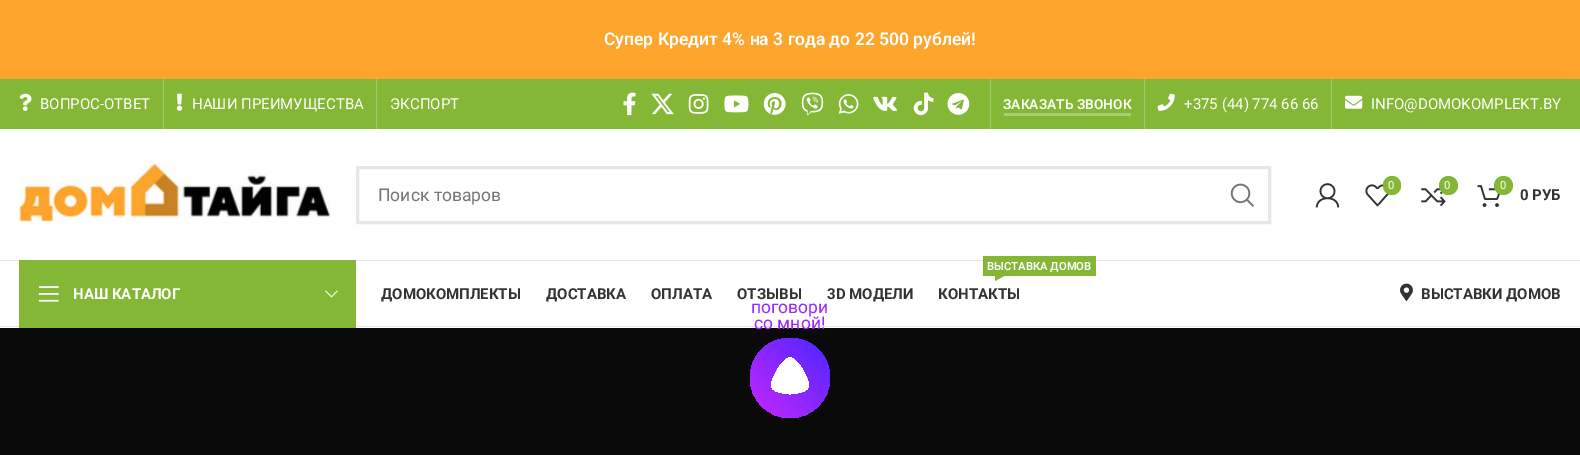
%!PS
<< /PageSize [1580 455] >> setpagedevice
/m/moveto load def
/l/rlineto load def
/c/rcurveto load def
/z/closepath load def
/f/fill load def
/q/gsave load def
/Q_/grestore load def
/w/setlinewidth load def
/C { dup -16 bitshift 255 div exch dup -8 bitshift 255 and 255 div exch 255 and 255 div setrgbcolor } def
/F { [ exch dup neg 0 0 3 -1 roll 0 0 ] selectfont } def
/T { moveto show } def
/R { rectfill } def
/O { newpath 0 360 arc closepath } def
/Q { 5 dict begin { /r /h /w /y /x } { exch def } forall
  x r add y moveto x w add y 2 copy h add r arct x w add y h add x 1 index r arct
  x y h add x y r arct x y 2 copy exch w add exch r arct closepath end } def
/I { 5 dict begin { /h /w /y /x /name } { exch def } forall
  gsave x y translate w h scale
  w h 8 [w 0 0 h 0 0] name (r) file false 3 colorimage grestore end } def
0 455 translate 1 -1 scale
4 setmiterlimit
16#FFFFFF C
0 0 1580 455 R
16#FEA52D C
0 0 1580 79 R
/Roboto-SemiBold 17.5 F
16#FFFFFF C
(Супер Кредит 4% на 3 года до 22 500 рублей!) 604 45 T
16#83B735 C
0 79 1580 50 R
(1.rgb) 19 93 13 18 I
/Roboto-Regular 15 F
16#FFFFFF C
(ВОПРОС-ОТВЕТ) 40 109 T
16#A2C968 C
163 79 1 50 R
(2.rgb) 176 93 7 18 I
16#FFFFFF C
(НАШИ ПРЕИМУЩЕСТВА) 192 109 T
16#A2C968 C
376 79 1 50 R
16#FFFFFF C
(ЭКСПОРТ) 390 109 T
(3.rgb) 623 92 13 24 I
(4.rgb) 651 93 23 22 I
(5.rgb) 688 94 21 20 I
(6.rgb) 724 95 25 18 I
(7.rgb) 763 93 23 22 I
(8.rgb) 801 92 23 24 I
(9.rgb) 838 94 21 20 I
(10.rgb) 873 96 24 15 I
(11.rgb) 913 92 21 24 I
(12.rgb) 947 93 23 22 I
16#A2C968 C
990 79 1 50 R
16#A8CD72 C
1004 113 127 3 R
/Roboto-SemiBold 13.75 F
16#FFFFFF C
(ЗАКАЗАТЬ ЗВОНОК) 1003 109 T
16#A2C968 C
1144 79 1 50 R
(13.rgb) 1157 93 18 18 I
/Roboto-Regular 15 F
16#FFFFFF C
(+375 \(44\) 774 66 66) 1184 109 T
16#A2C968 C
1331 79 1 50 R
(14.rgb) 1345 95 18 14 I
16#FFFFFF C
(INFO@DOMOKOMPLEKT.BY) 1371 109 T
16#E8E8E8 C
0 260 1580 1 R
(15.rgb) 19 162 312 62 I
16#E6E6E6 C
3 w
357.5 167.5 912 55 rectstroke
/Roboto-Regular 17.5 F
16#767676 C
(Поиск товаров) 378 201 T
(16.rgb) 1230 183 24 24 I
(17.rgb) 1315 183 25 25 I
(18.rgb) 1365 184 24 23 I
16#83B735 C
1383 176 18 19 9 Q f
/Roboto-Regular 11.25 F
16#FFFFFF C
(0) 1388 189 T
(19.rgb) 1421 185 25 22 I
16#83B735 C
1448.5 185.5 9.5 O f
16#FFFFFF C
(0) 1444 189 T
(20.rgb) 1477 185 23 22 I
16#83B735 C
1503.5 185.5 9.5 O f
16#FFFFFF C
(0) 1500 189 T
/Roboto-Bold 15 F
16#333333 C
(0 РУБ) 1520 200 T
16#E8E8E8 C
0 326 1580 1 R
16#83B735 C
19 260 337 68 R
(21.rgb) 38 286 21 16 I
16#FFFFFF C
(НАШ КАТАЛОГ) 73 299 T
(22.rgb) 325 290 13 8 I
16#333333 C
(ДОМОКОМПЛЕКТЫ) 381 299 T
(ДОСТАВКА) 546 299 T
(ОПЛАТА) 651 299 T
(ОТЗЫВЫ) 737 299 T
(3D МОДЕЛИ) 827 299 T
16#83B735 C
983 256 113 20 R
/Roboto-SemiBold 11.25 F
16#FFFFFF C
(ВЫСТАВКА ДОМОВ) 987 270 T
16#83B735 C
995 276 m 9 0 l -9 5 l z f
/Roboto-Bold 15 F
16#333333 C
(КОНТАКТЫ) 938 299 T
(23.rgb) 1400 283 13 18 I
(ВЫСТАВКИ ДОМОВ) 1421 299 T
16#0A0A0A C
0 328 1580 127 R
/Roboto-Regular 17.5 F
16#9B26FF C
(поговори) 751 313 T
(со мной!) 754 329 T
16#FFFFFF C
770 356 40 39 R
q 790 418 m -22 0 -40 -18 -40 -40 c 0 -23 18 -40 40 -40 c 22 0 40 17 40 40 c 0 22 -18 40 -40 40 c z 772 390 m 3 3 10 5 18 5 c 8 0 15 -2 18 -5 c 7 -7 -10 -34 -18 -34 c -8 0 -25 27 -18 34 c z clip newpath
<< /ShadingType 2 /ColorSpace /DeviceRGB /Coords [750 418 830 338] /Extend [true true] /Function << /FunctionType 2 /Domain [0 1] /C0 [.788 .149 1] /C1 [.29 .149 1] /N 1 >> >> shfill Q_
showpage
